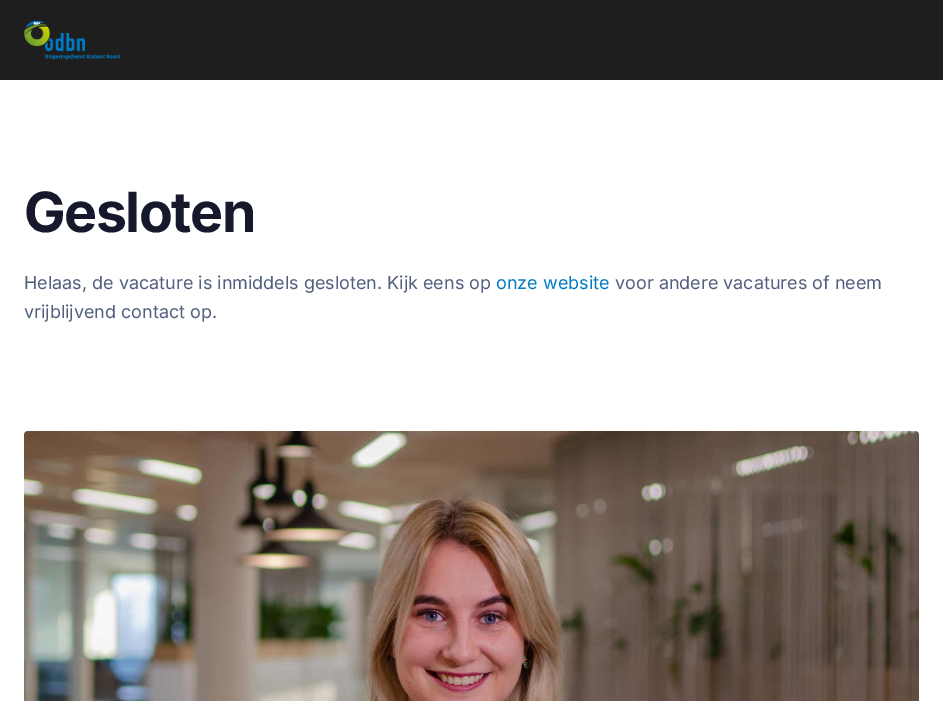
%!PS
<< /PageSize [943 701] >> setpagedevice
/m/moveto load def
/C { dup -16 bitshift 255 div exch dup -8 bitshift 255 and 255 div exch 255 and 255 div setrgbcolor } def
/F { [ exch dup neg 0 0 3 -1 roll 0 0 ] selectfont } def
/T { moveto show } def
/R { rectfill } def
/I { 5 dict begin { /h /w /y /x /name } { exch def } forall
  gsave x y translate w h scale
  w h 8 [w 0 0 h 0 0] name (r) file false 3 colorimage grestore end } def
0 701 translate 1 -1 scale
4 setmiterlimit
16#FFFFFF C
0 0 943 701 R
16#1E1E1E C
0 0 943 80 R
(1.rgb) 24 20 96 40 I
/Inter-Bold 55.5 F
16#16192C C
24 232 m -1.5 0 (Gesloten) ashow
/Inter-Regular 18 F
16#525F7F C
(Helaas, de vacature is inmiddels gesloten. Kijk eens op) 24 289 T
16#007AC2 C
(onze website) 496 289 T
16#525F7F C
(voor andere vacatures of neem) 615 289 T
(vrijblijvend contact op.) 24 318 T
(2.rgb) 24 431 895 270 I
showpage
